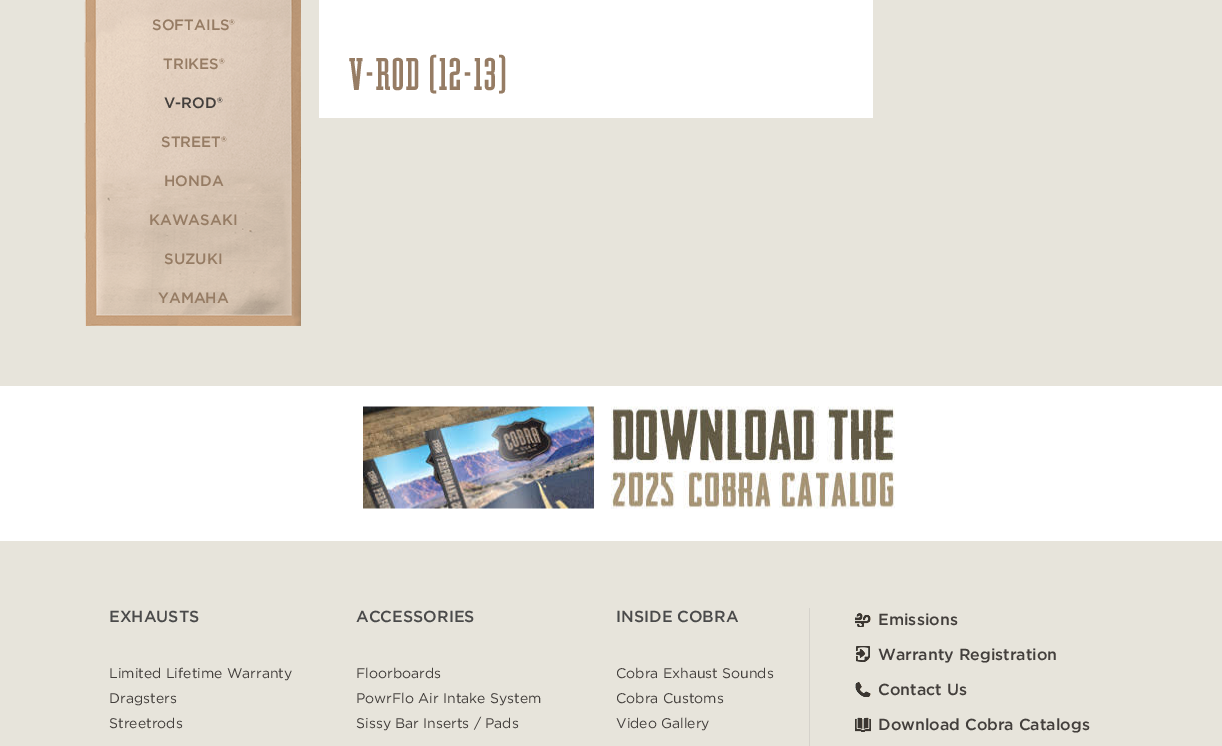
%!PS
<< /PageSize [1222 746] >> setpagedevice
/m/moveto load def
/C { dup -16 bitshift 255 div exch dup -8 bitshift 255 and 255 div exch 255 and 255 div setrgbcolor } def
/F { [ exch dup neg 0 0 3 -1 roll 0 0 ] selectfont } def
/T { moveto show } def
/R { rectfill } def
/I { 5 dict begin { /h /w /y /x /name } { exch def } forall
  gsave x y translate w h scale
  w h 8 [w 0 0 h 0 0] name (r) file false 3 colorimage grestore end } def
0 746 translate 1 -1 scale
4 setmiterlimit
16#E7E4DB C
0 0 1222 746 R
(1.rgb) 84 0 217 326 I
/Gotham-Medium 15 F
16#967C64 C
(SOFTAILS®) 152 30 T
(TRIKES®) 163 69 T
16#433F3C C
(V-ROD®) 164 108 T
16#967C64 C
(STREET®) 161 147 T
(HONDA) 164 186 T
(KAWASAKI) 149 225 T
(SUZUKI) 164 264 T
(YAMAHA) 158 303 T
16#FFFFFF C
319 0 554 118 R
/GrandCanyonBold-Regular 48 F
16#967C64 C
349 90 m 2 0 (V-ROD \(12-13\)) ashow
16#FFFFFF C
0 386 1222 155 R
(2.rgb) 363 406 532 103 I
/Gotham-Medium 16 F
16#4A4A4A C
(EXHAUSTS) 109 622 T
/Gotham-Regular 14 F
16#433F3C C
(Limited Lifetime Warranty) 109 678 T
(Dragsters) 109 703 T
(Streetrods) 109 728 T
/Gotham-Medium 16 F
16#4A4A4A C
(ACCESSORIES) 356 622 T
/Gotham-Regular 14 F
16#433F3C C
(Floorboards) 356 678 T
(PowrFlo Air Intake System) 356 703 T
(Sissy Bar Inserts / Pads) 356 728 T
/Gotham-Medium 16 F
16#4A4A4A C
(INSIDE COBRA) 616 622 T
/Gotham-Regular 14 F
16#433F3C C
(Cobra Exhaust Sounds) 616 678 T
(Cobra Customs) 616 703 T
(Video Gallery) 616 728 T
16#D5D2CB C
809 608 1 138 R
(3.rgb) 855 613 16 14 I
/Gotham-Medium 16 F
16#433F3C C
(Emissions) 878 625 T
(4.rgb) 856 646 14 16 I
(Warranty Registration) 878 660 T
(5.rgb) 855 682 16 15 I
(Contact Us) 878 695 T
(6.rgb) 855 717 16 15 I
(Download Cobra Catalogs) 878 730 T
showpage
